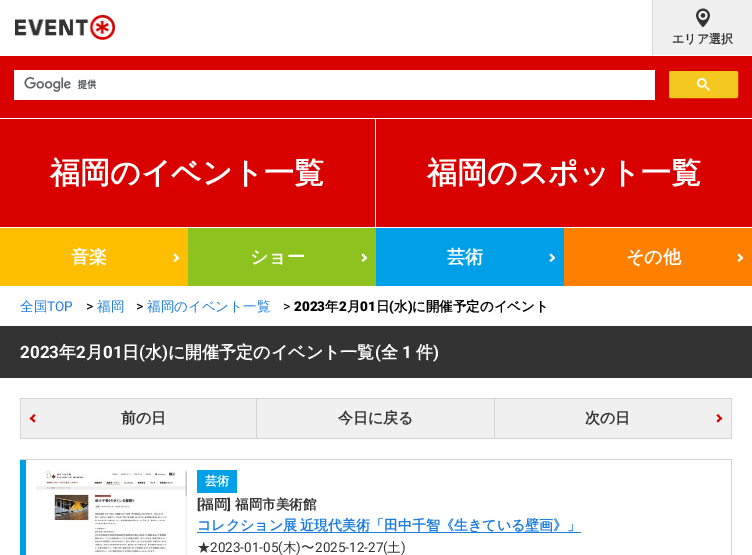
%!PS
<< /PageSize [752 555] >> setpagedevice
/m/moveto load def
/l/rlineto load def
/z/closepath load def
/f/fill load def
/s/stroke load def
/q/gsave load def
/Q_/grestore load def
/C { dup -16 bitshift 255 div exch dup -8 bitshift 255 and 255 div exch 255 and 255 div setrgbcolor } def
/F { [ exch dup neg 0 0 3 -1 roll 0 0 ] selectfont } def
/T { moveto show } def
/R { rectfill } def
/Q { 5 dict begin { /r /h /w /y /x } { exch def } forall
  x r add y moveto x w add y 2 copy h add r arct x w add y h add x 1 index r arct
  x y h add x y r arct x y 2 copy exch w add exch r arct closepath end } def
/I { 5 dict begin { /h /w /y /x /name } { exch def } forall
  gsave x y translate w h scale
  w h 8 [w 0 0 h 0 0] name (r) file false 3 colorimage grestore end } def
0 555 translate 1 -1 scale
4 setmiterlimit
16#FFFFFF C
0 0 752 555 R
(1.rgb) 15 15 100 25 I
16#F0F0F0 C
653 0 99 55 R
16#D4D4D4 C
652 0 1 55 R
(2.rgb) 696 8 14 19 I
/WenQuanYiZenHei-Bold 12 F
16#333333 C
(エリア選択) 672 43 T
16#D90000 C
0 56 752 171 R
16#FFFFFF C
14 70 641 30 R
(3.rgb) 24 77 73 15 I
16#F4C81F C
669.5 71.5 68 26 1.5 Q q f Q_
s
(4.rgb) 697 78 13 13 I
16#FFFFFF C
0 118 752 1 R
375 118 1 110 R
/WenQuanYiZenHei-Bold 30 F
(福岡のイベント一覧) 50 183 T
(福岡のスポット一覧) 427 183 T
16#FFBF00 C
0 228 188 58 R
/WenQuanYiZenHei-Bold 18 F
16#FFFFFF C
(音楽) 71 263 T
175 253.5 m 4 4.5 l -1 1.5 l -4.5 -4.5 l z f
178 256.5 m 1 1.5 l -4 4 l -1.5 -1.5 l z f
16#8EC31F C
188 228 188 58 R
16#FFFFFF C
(ショー) 250 263 T
363 253.5 m 4 4.5 l -1 1.5 l -4.5 -4.5 l z f
366 256.5 m 1 1.5 l -4 4 l -1.5 -1.5 l z f
16#00A0E9 C
376 228 188 58 R
16#FFFFFF C
(芸術) 447 263 T
551 253.5 m 4 4.5 l -1 1.5 l -4.5 -4.5 l z f
554 256.5 m 1 1.5 l -4 4 l -1.5 -1.5 l z f
16#FF8000 C
564 228 188 58 R
16#FFFFFF C
(その他) 626 263 T
739 253.5 m 4 4.5 l -1 1.5 l -4.5 -4.5 l z f
742 256.5 m 1 1.5 l -4 4 l -1.5 -1.5 l z f
/WenQuanYiZenHei-Medium 13.5 F
16#1D7DDC C
(全国) 20 311 T
/Roboto-Regular 13.5 F
(TOP) 47 311 T
/Roboto-Regular 14 F
16#000000 C
(>) 86 311 T
/WenQuanYiZenHei-Medium 13.5 F
16#1D7DDC C
(福岡) 97 311 T
/Roboto-Regular 14 F
16#000000 C
(>) 136 311 T
/WenQuanYiZenHei-Medium 13.5 F
16#1D7DDC C
(福岡のイベント一覧) 147 311 T
/Roboto-Regular 14 F
16#000000 C
(>) 283 311 T
/Roboto-Black 13.5 F
(2023) 294 311 T
/WenQuanYiZenHei-Bold 13.5 F
(年) 325 311 T
/Roboto-Black 13.5 F
(2) 339 311 T
/WenQuanYiZenHei-Bold 13.5 F
(月) 347 311 T
/Roboto-Black 13.5 F
(01) 360 311 T
/WenQuanYiZenHei-Bold 13.5 F
(日) 376 311 T
/Roboto-Black 13.5 F
(\() 389 311 T
/WenQuanYiZenHei-Bold 13.5 F
(水) 394 311 T
/Roboto-Black 13.5 F
(\)) 408 311 T
/WenQuanYiZenHei-Bold 13.5 F
(に開催予定のイベント) 412 311 T
16#333333 C
0 326 752 52 R
/Roboto-Bold 17 F
16#FFFFFF C
(2023) 20 358 T
/WenQuanYiZenHei-Bold 17 F
(年) 59 358 T
/Roboto-Bold 17 F
(2) 76 358 T
/WenQuanYiZenHei-Bold 17 F
(月) 86 358 T
/Roboto-Bold 17 F
(01) 103 358 T
/WenQuanYiZenHei-Bold 17 F
(日) 122 358 T
/Roboto-Bold 17 F
(\() 139 358 T
/WenQuanYiZenHei-Bold 17 F
(水) 145 358 T
/Roboto-Bold 17 F
(\)) 162 358 T
/WenQuanYiZenHei-Bold 17 F
(に開催予定のイベント一覧) 168 358 T
/Roboto-Bold 17 F
(\() 375 358 T
/WenQuanYiZenHei-Bold 17 F
(全) 381 358 T
/Roboto-Bold 17 F
(1) 402 358 T
/WenQuanYiZenHei-Bold 17 F
(件) 416 358 T
/Roboto-Bold 17 F
(\)) 433 358 T
16#F0F0F0 C
21 399 710 39 R
16#D4D4D4 C
20 398 712 1 R
20 438 712 1 R
256 399 1 39 R
20 399 1 39 R
16#D90000 C
31 417 m 4.5 4 l -1.5 1.5 l -4 -4 l z f
34 414 m 1.5 1.5 l -4.5 4.5 l -1 -1.5 l z f
/WenQuanYiZenHei-Bold 15 F
16#333333 C
(前の日) 121 423 T
16#D4D4D4 C
494 399 1 39 R
16#333333 C
(今日に戻る) 338 423 T
16#D4D4D4 C
731 399 1 39 R
16#333333 C
(次の日) 585 423 T
16#D90000 C
718 414 m 4 4.5 l -1 1.5 l -4.5 -4.5 l z f
721 417 m 1 1.5 l -4 4 l -1.5 -1.5 l z f
16#D4D4D4 C
20 459 712 1 R
731 460 1 95 R
16#00A0E9 C
20 460 6 95 R
(5.rgb) 36 470 151 85 I
197 470 40 23 R
/WenQuanYiZenHei-Bold 12 F
16#FFFFFF C
(芸術) 205 485 T
/Roboto-Bold 13.5 F
16#333333 C
([) 197 509 T
/WenQuanYiZenHei-Bold 13.5 F
(福岡) 200 509 T
/Roboto-Bold 13.5 F
(]) 227 509 T
/WenQuanYiZenHei-Bold 13.5 F
(福岡市美術館) 235 509 T
16#1D7DDC C
197 532 384 1 R
/WenQuanYiZenHei-Bold 14 F
197 530 m -1 0 32 (コレクション展 近現代美術「田中千智《生きている壁画》」) widthshow
/WenQuanYiZenHei-Medium 13.5 F
16#333333 C
(★) 197 552 T
/Roboto-Regular 13.5 F
(2023-01-05\() 210 552 T
/WenQuanYiZenHei-Medium 13.5 F
(木) 283 552 T
/Roboto-Regular 13.5 F
(\)) 296 552 T
/WenQuanYiZenHei-Medium 13.5 F
(〜) 301 552 T
/Roboto-Regular 13.5 F
(2025-12-27\() 315 552 T
/WenQuanYiZenHei-Medium 13.5 F
(土) 387 552 T
/Roboto-Regular 13.5 F
(\)) 401 552 T
showpage
